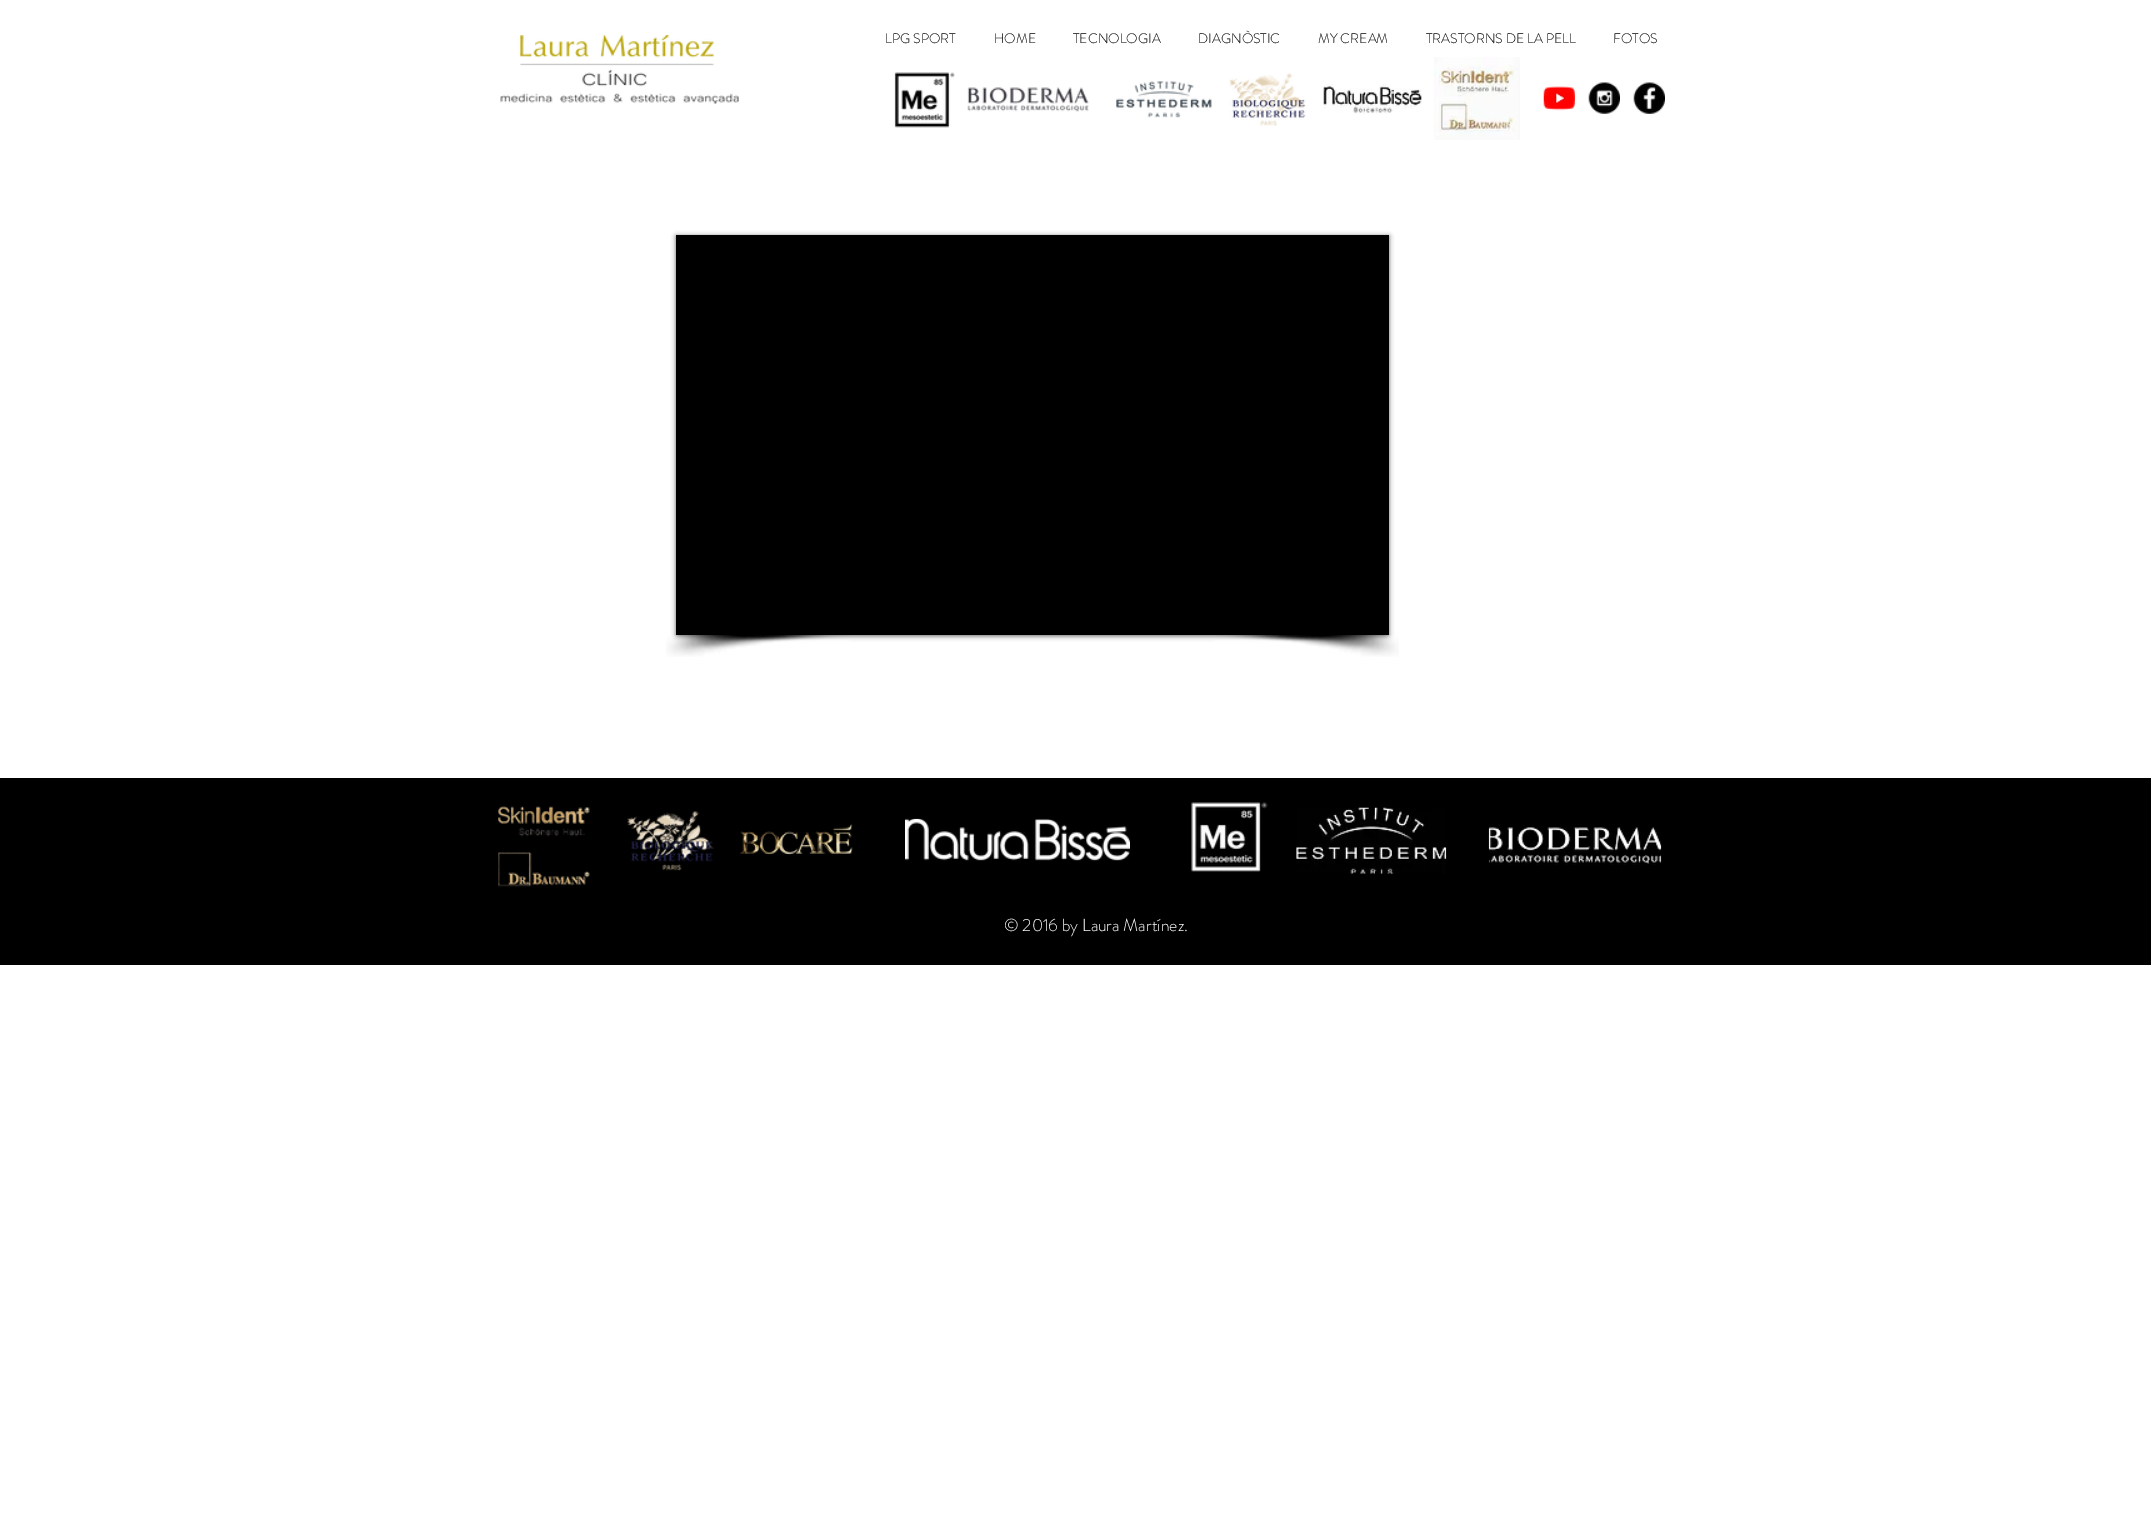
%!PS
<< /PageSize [2151 1531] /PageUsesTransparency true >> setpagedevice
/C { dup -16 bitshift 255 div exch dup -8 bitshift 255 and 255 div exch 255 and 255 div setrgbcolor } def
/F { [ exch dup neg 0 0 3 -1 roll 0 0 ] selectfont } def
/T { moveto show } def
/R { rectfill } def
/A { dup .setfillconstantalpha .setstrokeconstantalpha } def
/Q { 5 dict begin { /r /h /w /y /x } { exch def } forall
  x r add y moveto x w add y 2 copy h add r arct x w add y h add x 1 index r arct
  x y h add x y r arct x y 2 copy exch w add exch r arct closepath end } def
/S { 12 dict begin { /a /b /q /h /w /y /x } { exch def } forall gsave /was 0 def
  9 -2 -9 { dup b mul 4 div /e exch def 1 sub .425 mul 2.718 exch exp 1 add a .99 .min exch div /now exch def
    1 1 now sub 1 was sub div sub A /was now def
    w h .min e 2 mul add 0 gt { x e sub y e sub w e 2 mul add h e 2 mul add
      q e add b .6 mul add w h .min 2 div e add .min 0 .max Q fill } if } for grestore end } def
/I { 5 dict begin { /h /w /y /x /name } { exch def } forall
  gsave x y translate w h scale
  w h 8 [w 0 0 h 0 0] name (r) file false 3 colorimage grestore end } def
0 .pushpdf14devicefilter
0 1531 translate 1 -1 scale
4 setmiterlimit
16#FFFFFF C
0 0 2151 1531 R
(1.rgb) 500 35 239 69 I
/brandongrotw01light-Light 13.75 F
16#000000 C
(LPG SPORT) 885 43 T
(HOME) 994 43 T
(TECNOLOGIA) 1073 43 T
(DIAGNÒSTIC) 1198 43 T
(MY CREAM) 1318 43 T
(TRASTORNS DE LA PELL) 1426 43 T
(FOTOS) 1613 43 T
(2.rgb) 894 72 61 56 I
(3.rgb) 967 87 122 25 I
(4.rgb) 1116 81 96 37 I
(5.rgb) 1229 73 77 53 I
(6.rgb) 1323 84 99 30 I
(7.rgb) 1434 57 86 83 I
(8.rgb) 1543 86 32 25 I
(9.rgb) 1588 82 32 32 I
(10.rgb) 1633 82 32 32 I
676 236 713 400 0 2.5 .6 S
676 235 713 400 R
(11.rgb) 666 635 185 22 I
(12.rgb) 1214 635 185 22 I
0 778 2151 187 R
(13.rgb) 498 806 92 81 I
(14.rgb) 627 811 87 60 I
(15.rgb) 740 823 113 32 I
(16.rgb) 905 818 225 43 I
(17.rgb) 1191 802 77 70 I
(18.rgb) 1296 807 151 67 I
(19.rgb) 1488 827 174 38 I
/brandongrotw01light-Light 17.5 F
16#FFFFFF C
(© 2016 by Laura Martínez.) 1004 931 T
.poppdf14devicefilter showpage
